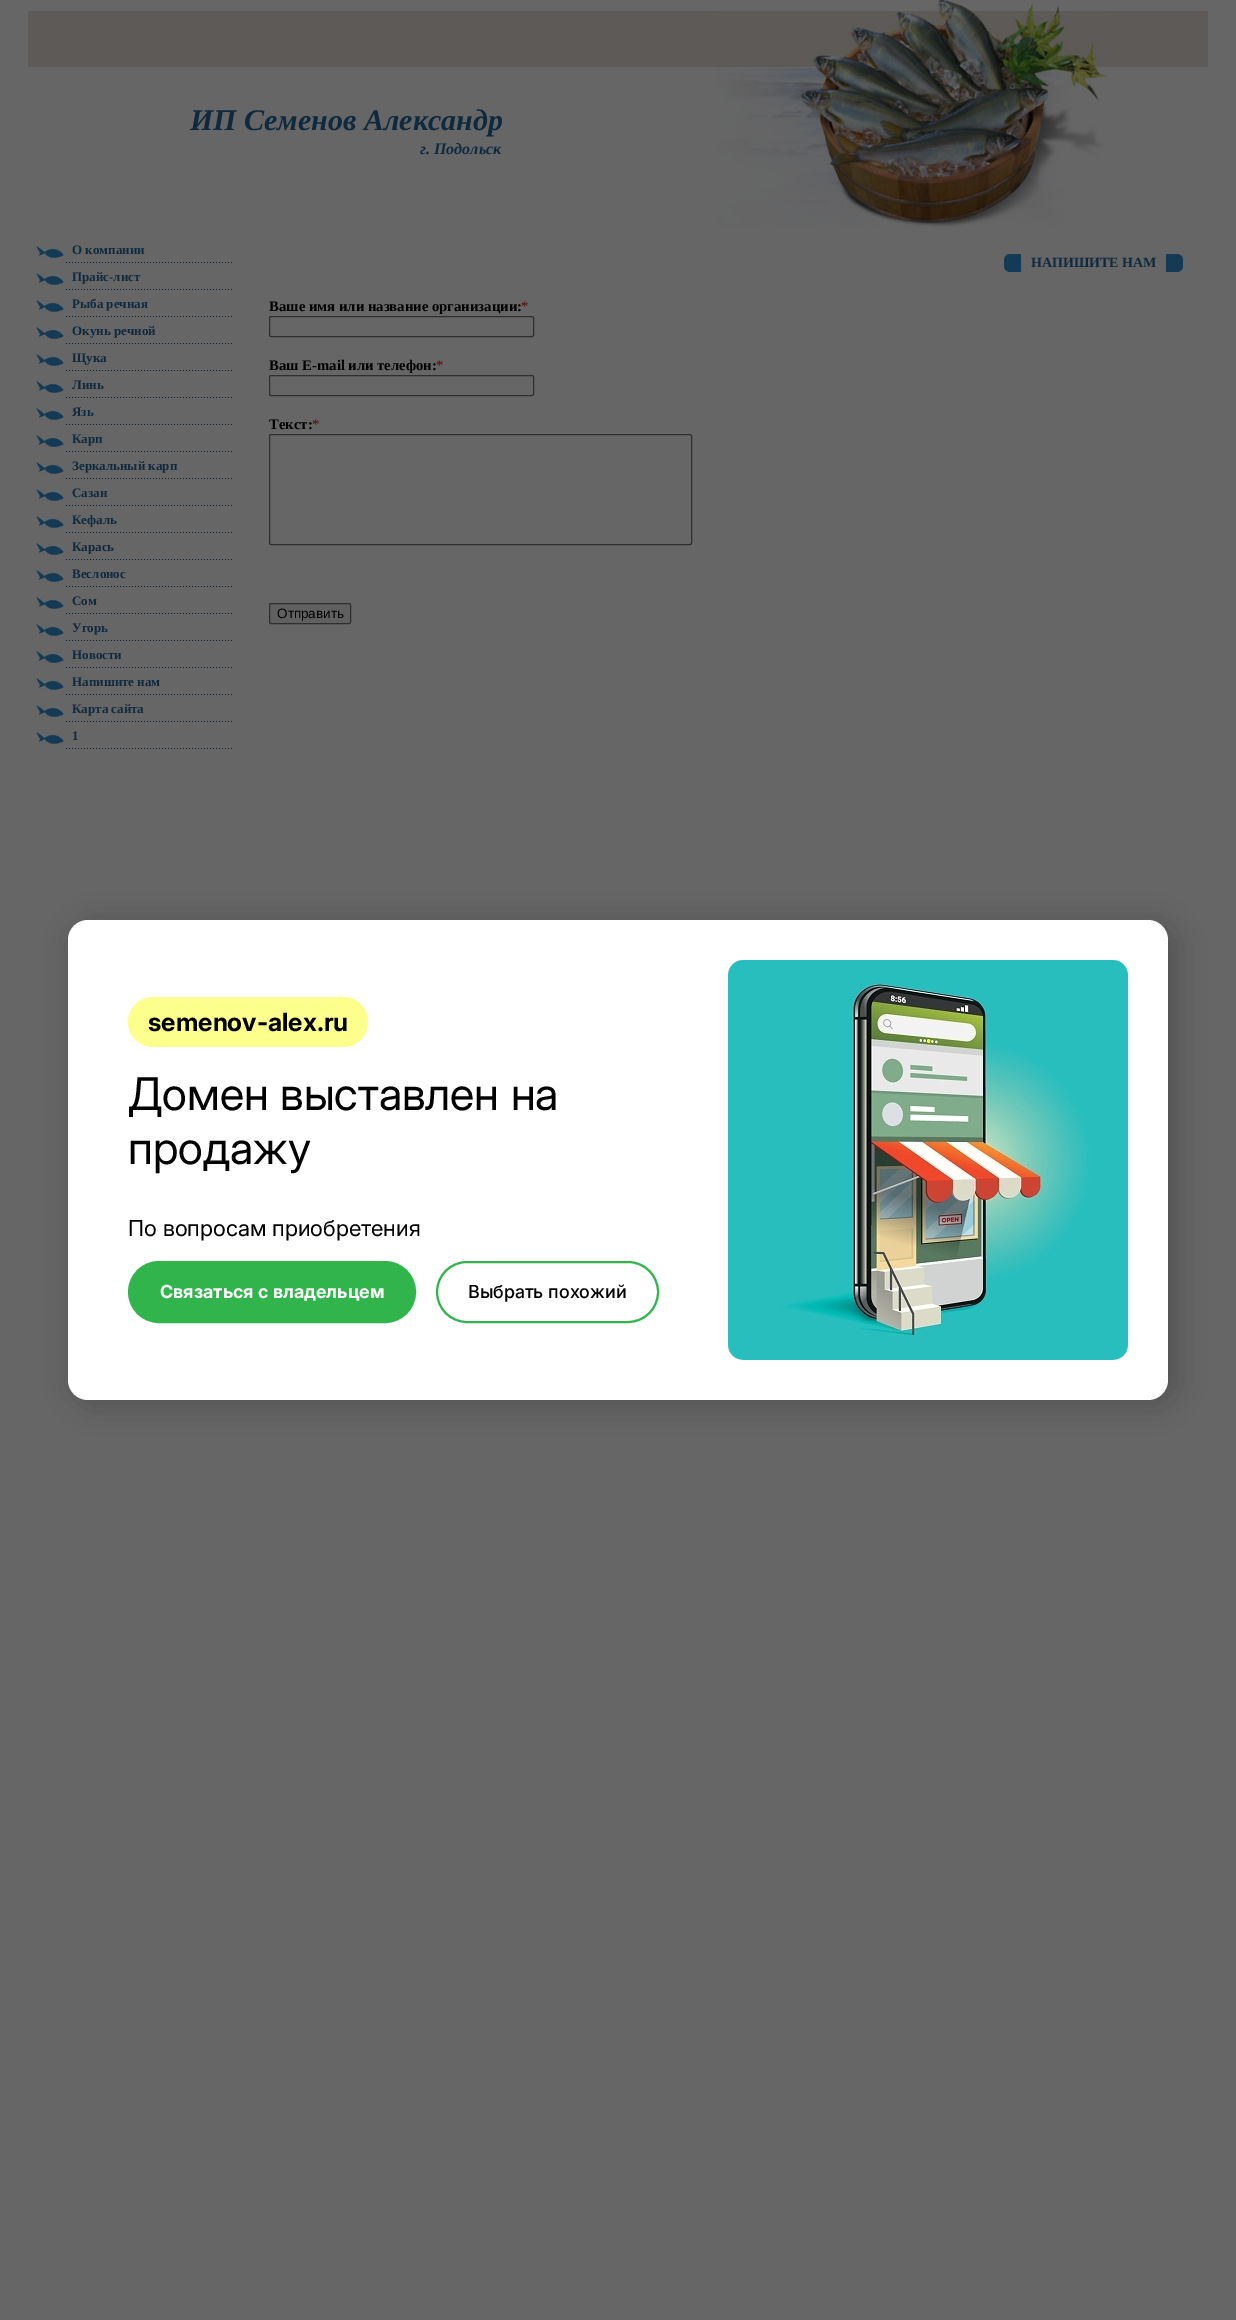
%!PS
<< /PageSize [1236 2320] /PageUsesTransparency true >> setpagedevice
/f/fill load def
/s/stroke load def
/q/gsave load def
/Q_/grestore load def
/w/setlinewidth load def
/C { dup -16 bitshift 255 div exch dup -8 bitshift 255 and 255 div exch 255 and 255 div setrgbcolor } def
/F { [ exch dup neg 0 0 3 -1 roll 0 0 ] selectfont } def
/T { moveto show } def
/R { rectfill } def
/A { dup .setfillconstantalpha .setstrokeconstantalpha } def
/Q { 5 dict begin { /r /h /w /y /x } { exch def } forall
  x r add y moveto x w add y 2 copy h add r arct x w add y h add x 1 index r arct
  x y h add x y r arct x y 2 copy exch w add exch r arct closepath end } def
/S { 12 dict begin { /a /b /q /h /w /y /x } { exch def } forall gsave /was 0 def
  9 -2 -9 { dup b mul 4 div /e exch def 1 sub .425 mul 2.718 exch exp 1 add a .99 .min exch div /now exch def
    1 1 now sub 1 was sub div sub A /was now def
    w h .min e 2 mul add 0 gt { x e sub y e sub w e 2 mul add h e 2 mul add
      q e add b .6 mul add w h .min 2 div e add .min 0 .max Q fill } if } for grestore end } def
/I { 5 dict begin { /h /w /y /x /name } { exch def } forall
  gsave x y translate w h scale
  w h 8 [w 0 0 h 0 0] name (r) file false 3 colorimage grestore end } def
0 .pushpdf14devicefilter
0 2320 translate 1 -1 scale
4 setmiterlimit
16#666666 C
0 0 1236 2320 R
/LiberationSerif-BoldItalic 30 F
16#0F293E C
(ИП Семенов Александр) 190 130 T
/LiberationSerif-BoldItalic 16 F
(г. Подольск) 420 154 T
16#5D5A57 C
28 11 1180 56 R
(1.rgb) 716 0 392 228 I
(2.rgb) 36 246 28 12 I
(3.rgb) 66 262 166 1 I
/LiberationSerif-Bold 13 F
16#0F293E C
(О компании) 72 254 T
(2.rgb) 36 273 28 12 I
(3.rgb) 66 289 166 1 I
(Прайс-лист) 72 281 T
(2.rgb) 36 300 28 12 I
(3.rgb) 66 316 166 1 I
(Рыба речная) 72 308 T
(2.rgb) 36 327 28 12 I
(3.rgb) 66 343 166 1 I
(Окунь речной) 72 335 T
(2.rgb) 36 354 28 12 I
(3.rgb) 66 370 166 1 I
(Щука) 72 362 T
(2.rgb) 36 381 28 12 I
(3.rgb) 66 397 166 1 I
(Линь) 72 389 T
(2.rgb) 36 408 28 12 I
(3.rgb) 66 424 166 1 I
(Язь) 72 416 T
(2.rgb) 36 435 28 12 I
(3.rgb) 66 451 166 1 I
(Карп) 72 443 T
(2.rgb) 36 462 28 12 I
(3.rgb) 66 478 166 1 I
(Зеркальный карп) 72 470 T
(2.rgb) 36 489 28 12 I
(3.rgb) 66 505 166 1 I
(Сазан) 72 497 T
(2.rgb) 36 516 28 12 I
(3.rgb) 66 532 166 1 I
(Кефаль) 72 524 T
(2.rgb) 36 543 28 12 I
(3.rgb) 66 559 166 1 I
(Карась) 72 551 T
(2.rgb) 36 570 28 12 I
(3.rgb) 66 586 166 1 I
(Веслонос) 72 578 T
(2.rgb) 36 597 28 12 I
(3.rgb) 66 613 166 1 I
(Cом) 72 605 T
(2.rgb) 36 624 28 12 I
(3.rgb) 66 640 166 1 I
(Угорь) 72 632 T
(2.rgb) 36 651 28 12 I
(3.rgb) 66 667 166 1 I
(Новости) 72 659 T
(2.rgb) 36 678 28 12 I
(3.rgb) 66 694 166 1 I
(Напишите нам) 72 686 T
(2.rgb) 36 705 28 12 I
(3.rgb) 66 721 166 1 I
(Карта сайта) 72 713 T
(2.rgb) 36 732 28 12 I
(3.rgb) 66 748 166 1 I
(1) 72 740 T
(4.rgb) 1004 254 17 18 I
/LiberationSerif-Bold 14 F
(НАПИШИТЕ НАМ) 1031 267 T
(5.rgb) 1166 254 17 18 I
/LiberationSerif-Bold 14.7 F
16#000000 C
(Ваше имя или название организации:) 269 311 T
/LiberationSerif-Regular 14.7 F
16#660000 C
(*) 521 311 T
16#2F2F2F C
269.5 316.5 264 20 1.5 Q s
/LiberationSerif-Bold 14.7 F
16#000000 C
(Ваш E-mail или телефон:) 269 370 T
/LiberationSerif-Regular 14.7 F
16#660000 C
(*) 436 370 T
16#2F2F2F C
269.5 375.5 264 20 1.5 Q s
/LiberationSerif-Bold 14.7 F
16#000000 C
(Текст:) 269 429 T
/LiberationSerif-Regular 14.7 F
16#660000 C
(*) 312 429 T
16#2F2F2F C
269.5 434.5 422 110 1.5 Q s
16#606060 C
269.5 603.5 81 20 1.5 Q q f Q_
16#2F2F2F C
s
/LiberationSans-Regular 13.5 F
16#000000 C
(Отправить) 277 618 T
75 924 1100 480 20 15 .2 S
16#FFFFFF C
68 920 1100 480 20 Q f
16#FDFF8C C
128 997 240 50 25 Q f
/Inter-Bold 25 F
16#000000 C
(semenov-alex.ru) 148 1031 T
/Inter-Regular 45 F
(Домен выставлен на) 128 1110 T
(продажу) 128 1164 T
/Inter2-Regular 22 F
(По вопросам приобретения) 128 1236 T
16#31B44C C
129 1262 286 60 30 Q q f Q_
2 w
s
/Inter2-Bold 18 F
16#FFFFFF C
(Связаться с владельцем) 160 1298 T
16#31B44C C
437 1262 221 60 30 Q s
/Inter-Medium 18 F
16#000000 C
(Выбрать похожий) 468 1298 T
(6.rgb) 728 960 400 400 I
.poppdf14devicefilter showpage
